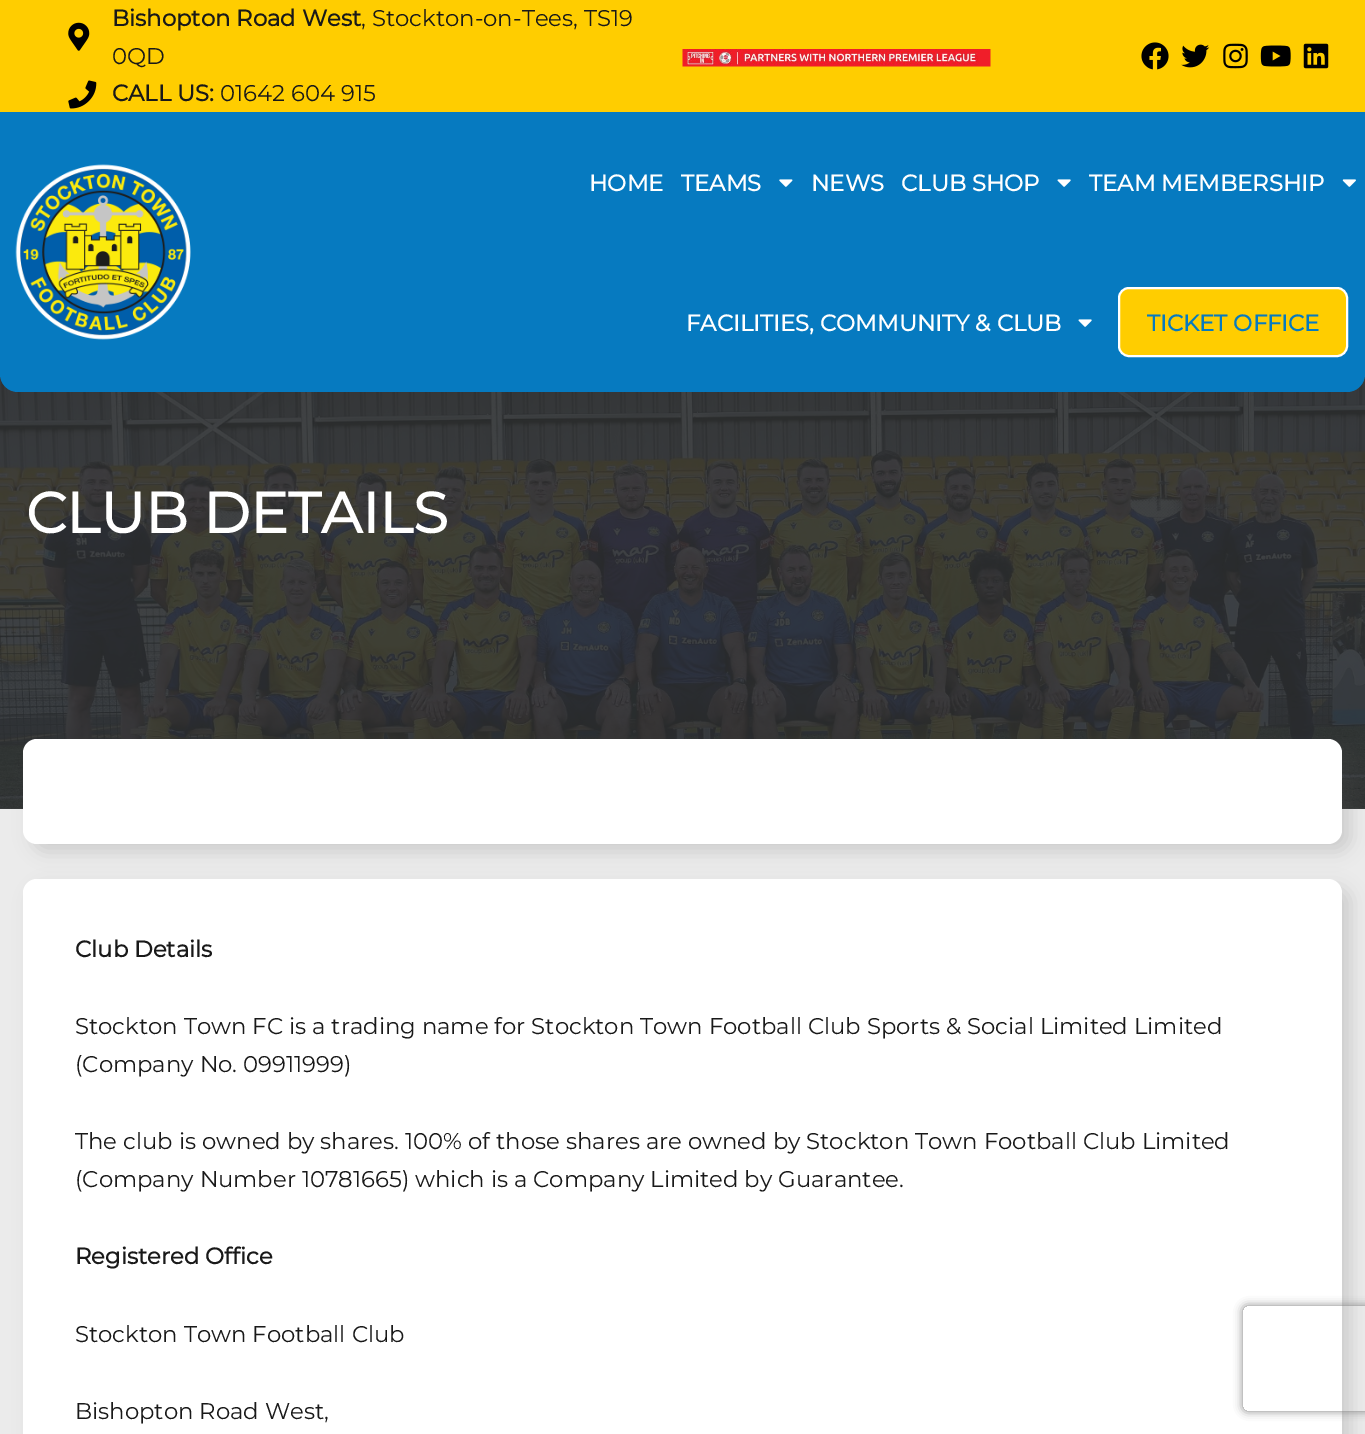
%!PS
<< /PageSize [1365 1434] /PageUsesTransparency true >> setpagedevice
/m/moveto load def
/l/rlineto load def
/c/rcurveto load def
/z/closepath load def
/f/fill load def
/s/stroke load def
/q/gsave load def
/Q_/grestore load def
/w/setlinewidth load def
/C { dup -16 bitshift 255 div exch dup -8 bitshift 255 and 255 div exch 255 and 255 div setrgbcolor } def
/F { [ exch dup neg 0 0 3 -1 roll 0 0 ] selectfont } def
/T { moveto show } def
/R { rectfill } def
/A { dup .setfillconstantalpha .setstrokeconstantalpha } def
/Q { 5 dict begin { /r /h /w /y /x } { exch def } forall
  x r add y moveto x w add y 2 copy h add r arct x w add y h add x 1 index r arct
  x y h add x y r arct x y 2 copy exch w add exch r arct closepath end } def
/S { 12 dict begin { /a /b /q /h /w /y /x } { exch def } forall gsave /was 0 def
  9 -2 -9 { dup b mul 4 div /e exch def 1 sub .425 mul 2.718 exch exp 1 add a .99 .min exch div /now exch def
    1 1 now sub 1 was sub div sub A /was now def
    w h .min e 2 mul add 0 gt { x e sub y e sub w e 2 mul add h e 2 mul add
      q e add b .6 mul add w h .min 2 div e add .min 0 .max Q fill } if } for grestore end } def
/I { 5 dict begin { /h /w /y /x /name } { exch def } forall
  gsave x y translate w h scale
  w h 8 [w 0 0 h 0 0] name (r) file false 3 colorimage grestore end } def
0 .pushpdf14devicefilter
0 1434 translate 1 -1 scale
4 setmiterlimit
16#EBEBEB C
0 0 1365 1434 R
16#3F4142 C
0 808 1365 1 R
16#FFCD00 C
0 0 1365 112 R
(1.rgb) 68 22 22 29 I
/Montserrat-Bold 22.75 F
16#191919 C
(Bishopton Road West) 112 26 T
/Montserrat-Thin 22.75 F
(, Stockton-on-Tees, TS19) 361 26 T
(0QD) 112 64 T
(2.rgb) 68 80 29 29 I
/Montserrat-Bold 22.75 F
(CALL US:) 112 101 T
/Montserrat-Thin 22.75 F
(01642 604 915) 220 101 T
(3.rgb) 682 49 309 18 I
(4.rgb) 1141 42 28 28 I
(5.rgb) 1181 44 29 24 I
(6.rgb) 1223 43 25 26 I
(7.rgb) 1260 45 31 22 I
(8.rgb) 1303 43 26 26 I
(13.rgb) 0 374 1365 435 I
16#067AC0 C
0 112 m 1365 0 l 0 262 l 0 10 -8 18 -18 18 c -1329 0 l -10 0 -18 -8 -18 -18 c z f
(9.rgb) 15 164 176 176 I
/Montserrat-Bold 22.75 F
16#FFFFFF C
(HOME) 589 191 T
(TEAMS) 681 191 T
(10.rgb) 779 179 14 8 I
(NEWS) 811 191 T
(CLUB SHOP) 901 191 T
(11.rgb) 1057 179 14 8 I
(TEAM MEMBERSHIP) 1089 191 T
(12.rgb) 1342 179 14 8 I
(FACILITIES, COMMUNITY & CLUB) 686 331 T
(11.rgb) 1078 319 14 8 I
16#FFCD00 C
1119 288 228 68 10 Q q f Q_
16#FFFFFF C
2 w
s
16#067AC0 C
(TICKET OFFICE) 1147 331 T
/Montserrat-Bold 57 F
16#FFFFFF C
(CLUB DETAILS) 26 533 T
16#545454 C
32 747 1319 105 14 9 .2 S
16#FFFFFF C
23 739 1319 105 14 Q f
16#545454 C
32 887 1319 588 14 9 .2 S
16#FFFFFF C
23 879 1319 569 14 Q f
/Montserrat-Bold 22.75 F
16#191919 C
(Club Details) 75 957 T
/Montserrat-Thin 22.75 F
(Stockton Town FC is a trading name for Stockton Town Football Club Sports & Social Limited Limited) 75 1034 T
(\(Company No. 09911999\)) 75 1072 T
(The club is owned by shares. 100% of those shares are owned by Stockton Town Football Club Limited) 75 1149 T
(\(Company Number 10781665\) which is a Company Limited by Guarantee.) 75 1187 T
/Montserrat-Bold 22.75 F
(Registered Office) 75 1264 T
/Montserrat-Thin 22.75 F
(Stockton Town Football Club) 75 1342 T
(Bishopton Road West,) 75 1419 T
q
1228 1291 m 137 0 l 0 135 l -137 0 l z 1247 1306 m 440 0 l 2 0 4 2 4 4 c 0 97 l 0 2 -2 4 -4 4 c -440 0 l -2 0 -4 -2 -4 -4 c 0 -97 l 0 -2 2 -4 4 -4 c z eoclip newpath
16#808080 C
1243 1306 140 105 4 4.5 1 S
Q_
.poppdf14devicefilter showpage
